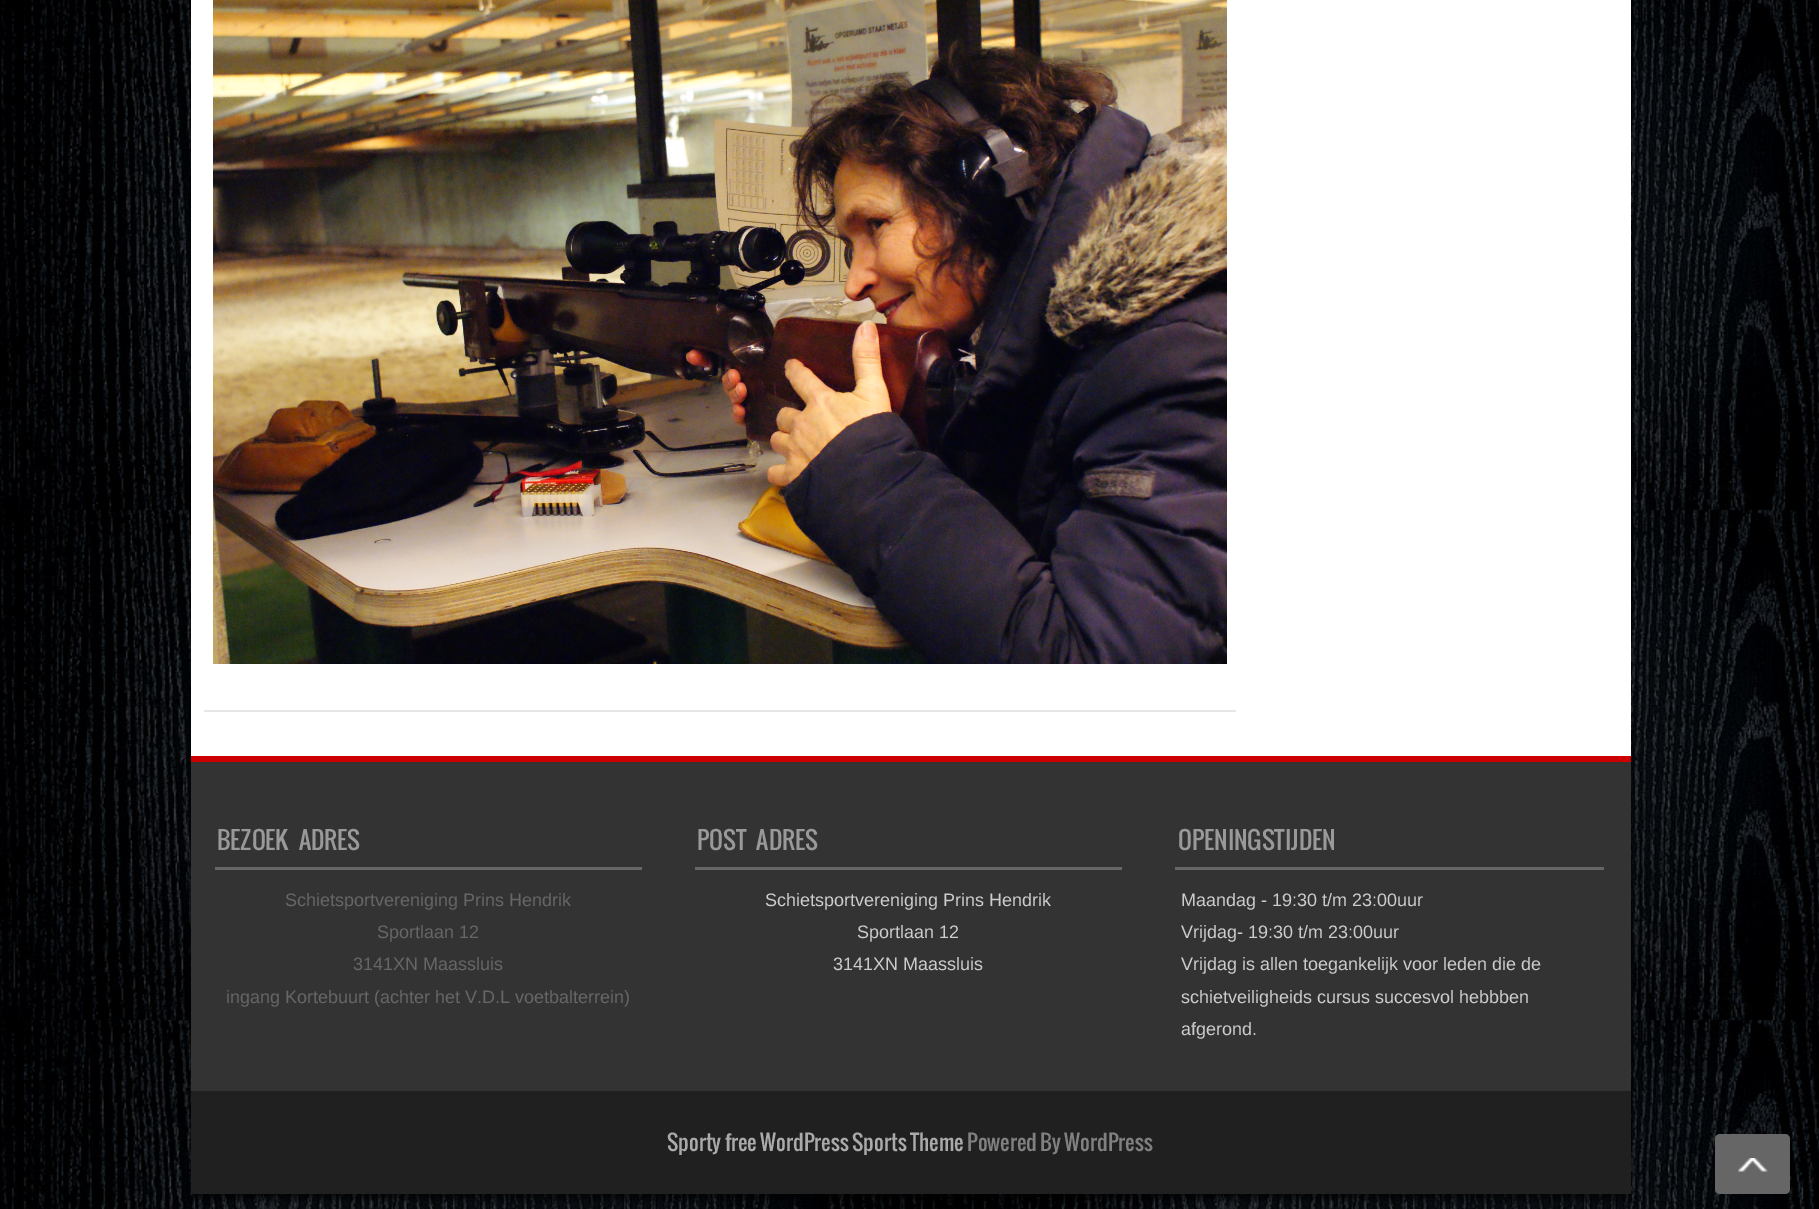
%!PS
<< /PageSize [1819 1209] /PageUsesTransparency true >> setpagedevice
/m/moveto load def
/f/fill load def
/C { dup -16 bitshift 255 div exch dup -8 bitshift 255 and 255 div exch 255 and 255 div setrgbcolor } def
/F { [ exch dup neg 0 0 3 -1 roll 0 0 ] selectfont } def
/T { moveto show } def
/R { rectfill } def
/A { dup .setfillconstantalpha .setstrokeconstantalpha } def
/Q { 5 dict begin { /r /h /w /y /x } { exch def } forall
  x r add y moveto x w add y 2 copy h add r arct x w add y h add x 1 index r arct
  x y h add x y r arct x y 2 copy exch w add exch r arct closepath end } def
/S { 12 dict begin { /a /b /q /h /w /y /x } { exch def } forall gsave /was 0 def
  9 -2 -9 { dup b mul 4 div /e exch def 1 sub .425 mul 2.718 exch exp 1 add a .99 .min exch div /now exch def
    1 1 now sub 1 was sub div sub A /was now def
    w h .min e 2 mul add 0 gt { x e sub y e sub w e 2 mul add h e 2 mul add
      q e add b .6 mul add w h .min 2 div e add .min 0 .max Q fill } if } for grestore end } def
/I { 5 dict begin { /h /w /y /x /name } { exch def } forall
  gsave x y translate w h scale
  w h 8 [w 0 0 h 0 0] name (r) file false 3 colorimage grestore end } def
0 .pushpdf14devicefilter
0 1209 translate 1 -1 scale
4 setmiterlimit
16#FFFFFF C
0 0 1819 1209 R
(1.rgb) 0 0 1819 1209 I
16#000000 C
191 -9 1440 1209 0 3 .6 S
16#FFFFFF C
191 0 1440 756 R
16#E6E6E6 C
204 710 1032 2 R
(2.rgb) 213 0 1014 664 I
16#333333 C
191 762 1440 329 R
16#CC0000 C
191 756 1440 6 R
16#666666 C
215 867 427 3 R
/Oswald-Regular 24 F
16#999999 C
217 850 m 6 0 32 (BEZOEK ADRES) widthshow
/LiberationSans-Regular 18 F
16#666666 C
(Schietsportvereniging Prins Hendrik) 285 906 T
(Sportlaan 12) 377 938 T
(3141XN Maassluis) 353 970 T
(ingang Kortebuurt \(achter het V.D.L voetbalterrein\)) 226 1003 T
695 867 427 3 R
/Oswald-Regular 24 F
16#999999 C
697 850 m 6 0 32 (POST ADRES) widthshow
/LiberationSans-Regular 18 F
16#CCCCCC C
(Schietsportvereniging Prins Hendrik) 765 906 T
(Sportlaan 12) 857 938 T
(3141XN Maassluis) 833 970 T
16#666666 C
1175 867 429 3 R
/Oswald-Regular 24 F
16#999999 C
(OPENINGSTIJDEN) 1178 850 T
/LiberationSans-Regular 18 F
16#CCCCCC C
(Maandag - 19:30 t/m 23:00uur) 1181 906 T
(Vrijdag- 19:30 t/m 23:00uur) 1181 938 T
(Vrijdag is allen toegankelijk voor leden die de) 1181 970 T
(schietveiligheids cursus succesvol hebbben) 1181 1003 T
(afgerond.) 1181 1035 T
16#202020 C
191 1091 1440 103 R
/Oswald-Regular 21 F
16#AAAAAA C
(Sporty free WordPress Sports Theme) 667 1151 T
16#808080 C
(Powered By WordPress) 967 1151 T
16#666666 C
1715 1134 75 60 5 Q f
(3.rgb) 1738 1158 30 14 I
.poppdf14devicefilter showpage
